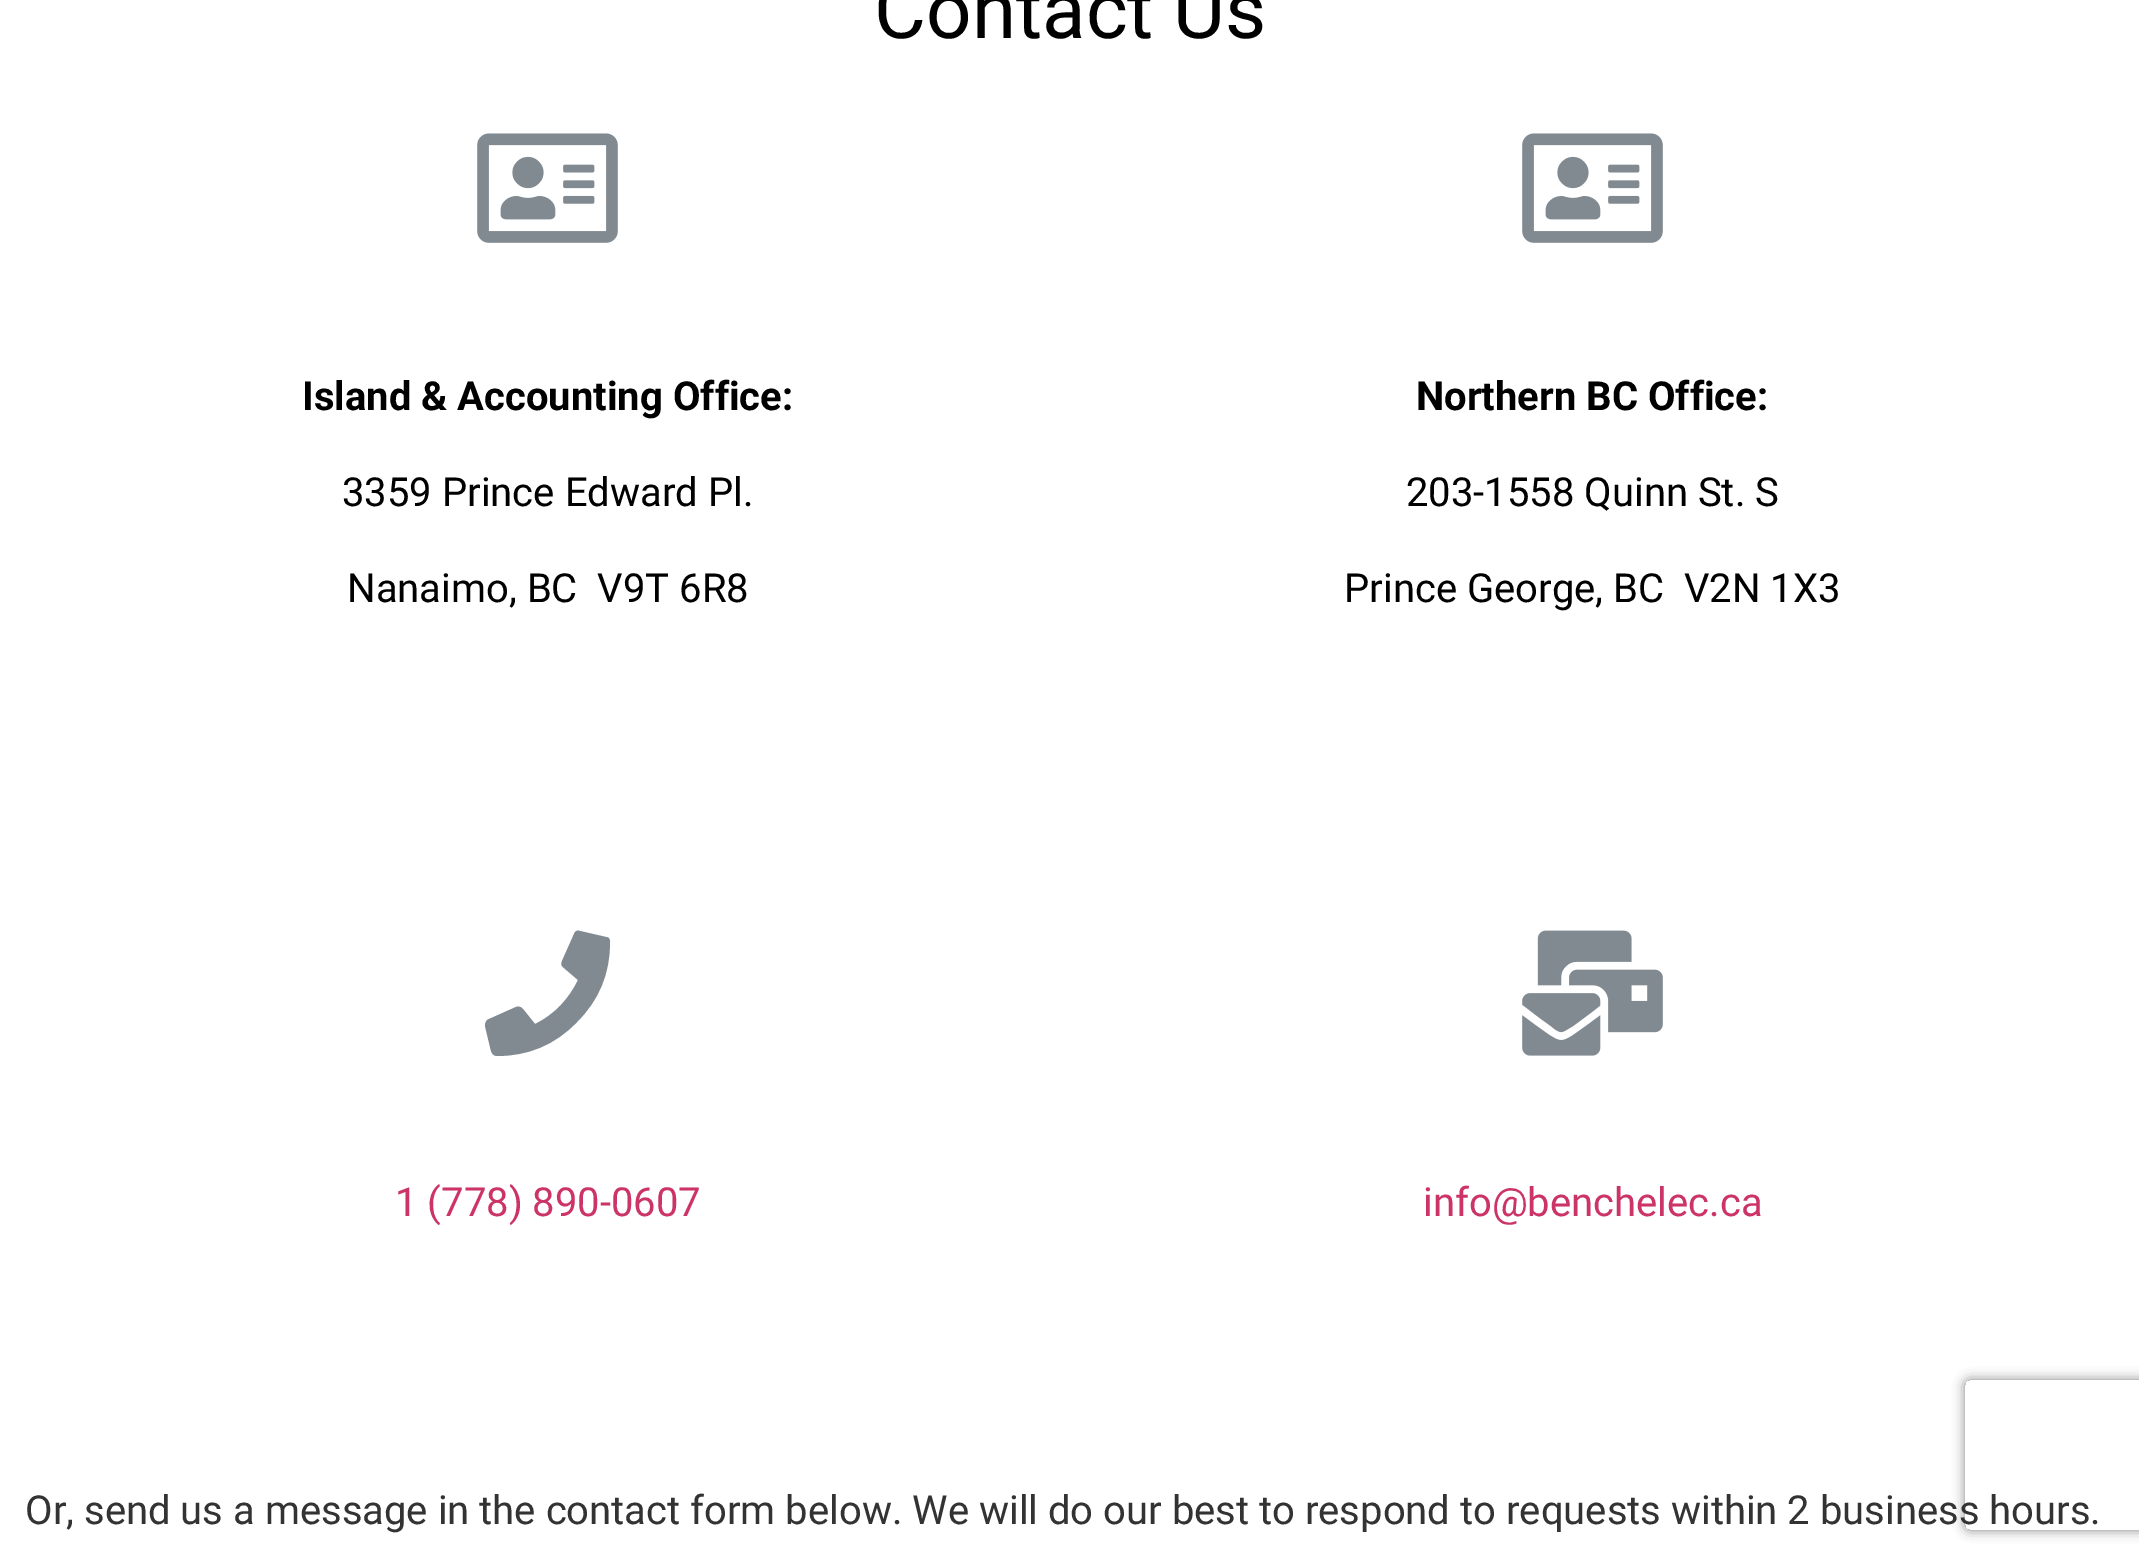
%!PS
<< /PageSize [2139 1565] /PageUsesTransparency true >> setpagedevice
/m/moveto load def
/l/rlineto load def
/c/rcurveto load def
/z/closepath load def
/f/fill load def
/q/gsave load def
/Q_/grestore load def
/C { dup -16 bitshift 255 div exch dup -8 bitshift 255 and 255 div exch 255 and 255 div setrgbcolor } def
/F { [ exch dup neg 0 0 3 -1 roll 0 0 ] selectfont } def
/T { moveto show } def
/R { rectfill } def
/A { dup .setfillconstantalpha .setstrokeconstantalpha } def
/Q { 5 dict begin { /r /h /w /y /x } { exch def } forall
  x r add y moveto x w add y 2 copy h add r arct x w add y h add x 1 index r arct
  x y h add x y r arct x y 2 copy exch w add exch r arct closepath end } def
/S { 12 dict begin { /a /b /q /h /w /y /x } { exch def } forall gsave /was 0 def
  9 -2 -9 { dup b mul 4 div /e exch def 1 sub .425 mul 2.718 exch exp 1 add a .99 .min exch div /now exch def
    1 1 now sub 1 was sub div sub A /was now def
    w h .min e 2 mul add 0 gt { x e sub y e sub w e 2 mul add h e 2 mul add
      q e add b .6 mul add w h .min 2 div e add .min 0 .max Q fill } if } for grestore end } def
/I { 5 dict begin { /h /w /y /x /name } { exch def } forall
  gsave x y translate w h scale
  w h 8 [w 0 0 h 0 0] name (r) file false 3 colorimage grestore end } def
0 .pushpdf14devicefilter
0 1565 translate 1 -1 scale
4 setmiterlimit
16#FFFFFF C
0 0 2139 1565 R
/Roboto-Regular 80 F
16#000000 C
(Contact Us) 874 38 T
(1.rgb) 477 133 141 110 I
/Roboto-Bold 40 F
(Island & Accounting Office:) 302 410 T
/Roboto-Regular 40 F
(3359 Prince Edward Pl.) 342 506 T
(Nanaimo, BC  V9T 6R8) 347 602 T
(1.rgb) 1522 133 141 110 I
/Roboto-Bold 40 F
(Northern BC Office:) 1416 410 T
/Roboto-Regular 40 F
(203-1558 Quinn St. S) 1406 506 T
(Prince George, BC  V2N 1X3) 1344 602 T
16#818A91 C
606 937 m 3 0 4 2 4 5 c 0 32 -11 58 -33 80 c -22 23 -49 34 -80 34 c -3 0 -5 -2 -6 -5 c -6 -25 l 0 -3 1 -6 4 -7 c 27 -12 l 3 -1 5 0 7 2 c 12 15 l 19 -9 34 -25 43 -44 c -14 -12 l -3 -2 -3 -4 -2 -7 c 12 -27 l 1 -3 3 -4 6 -3 c z f
16#CC3366 C
(1 \(778\) 890-0607) 395 1216 T
(2.rgb) 1522 930 141 126 I
(info@benchelec.ca) 1423 1216 T
q
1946 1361 m 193 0 l 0 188 l -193 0 l z 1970 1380 m 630 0 l 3 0 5 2 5 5 c 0 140 l 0 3 -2 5 -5 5 c -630 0 l -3 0 -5 -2 -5 -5 c 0 -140 l 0 -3 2 -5 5 -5 c z eoclip newpath
16#808080 C
1965 1380 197 150 5 6 1 S
Q_
16#333333 C
(Or, send us a message in the contact form below. We will do our best to respond to requests within 2 business hours.) 25 1524 T
.poppdf14devicefilter showpage
